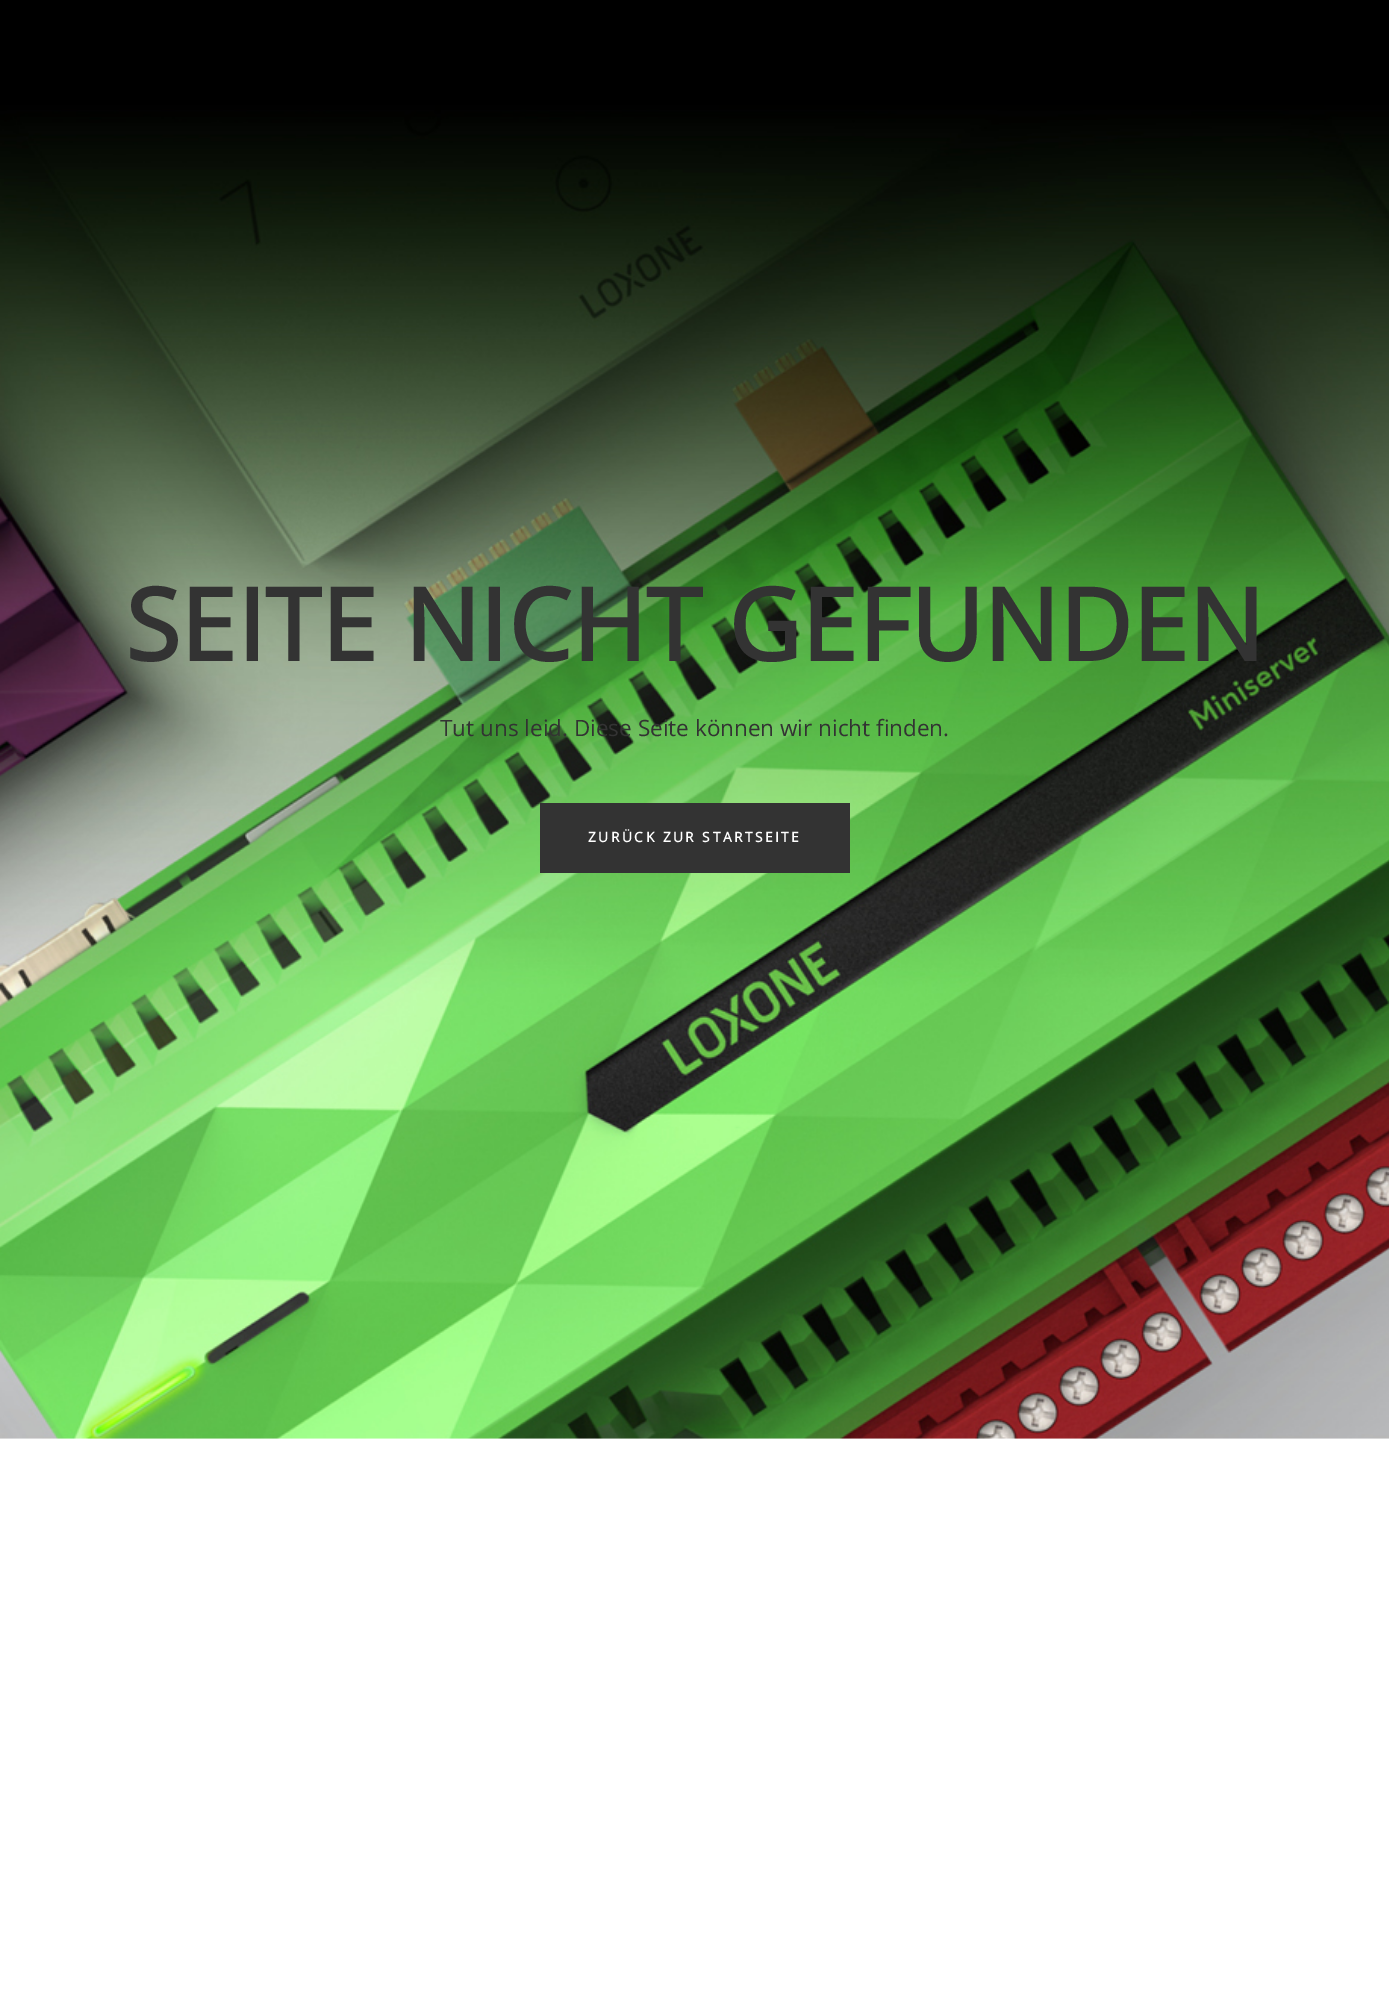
%!PS
<< /PageSize [1389 2014] >> setpagedevice
/m/moveto load def
/C { dup -16 bitshift 255 div exch dup -8 bitshift 255 and 255 div exch 255 and 255 div setrgbcolor } def
/F { [ exch dup neg 0 0 3 -1 roll 0 0 ] selectfont } def
/T { moveto show } def
/R { rectfill } def
/I { 5 dict begin { /h /w /y /x /name } { exch def } forall
  gsave x y translate w h scale
  w h 8 [w 0 0 h 0 0] name (r) file false 3 colorimage grestore end } def
0 2014 translate 1 -1 scale
4 setmiterlimit
16#FFFFFF C
0 0 1389 2014 R
(1.rgb) 0 0 1389 1439 I
/OpenSans-Bold 100 F
16#333333 C
125 661 m .6 0 (SEITE NICHT GEFUNDEN) ashow
/OpenSans-Regular 22.5 F
(Tut uns leid. Diese Seite können wir nicht finden.) 440 736 T
540 803 310 70 R
/OpenSans-Bold 13.75 F
16#FFFFFF C
588 842 m 2.5 0 (ZURÜCK ZUR STARTSEITE) ashow
showpage
